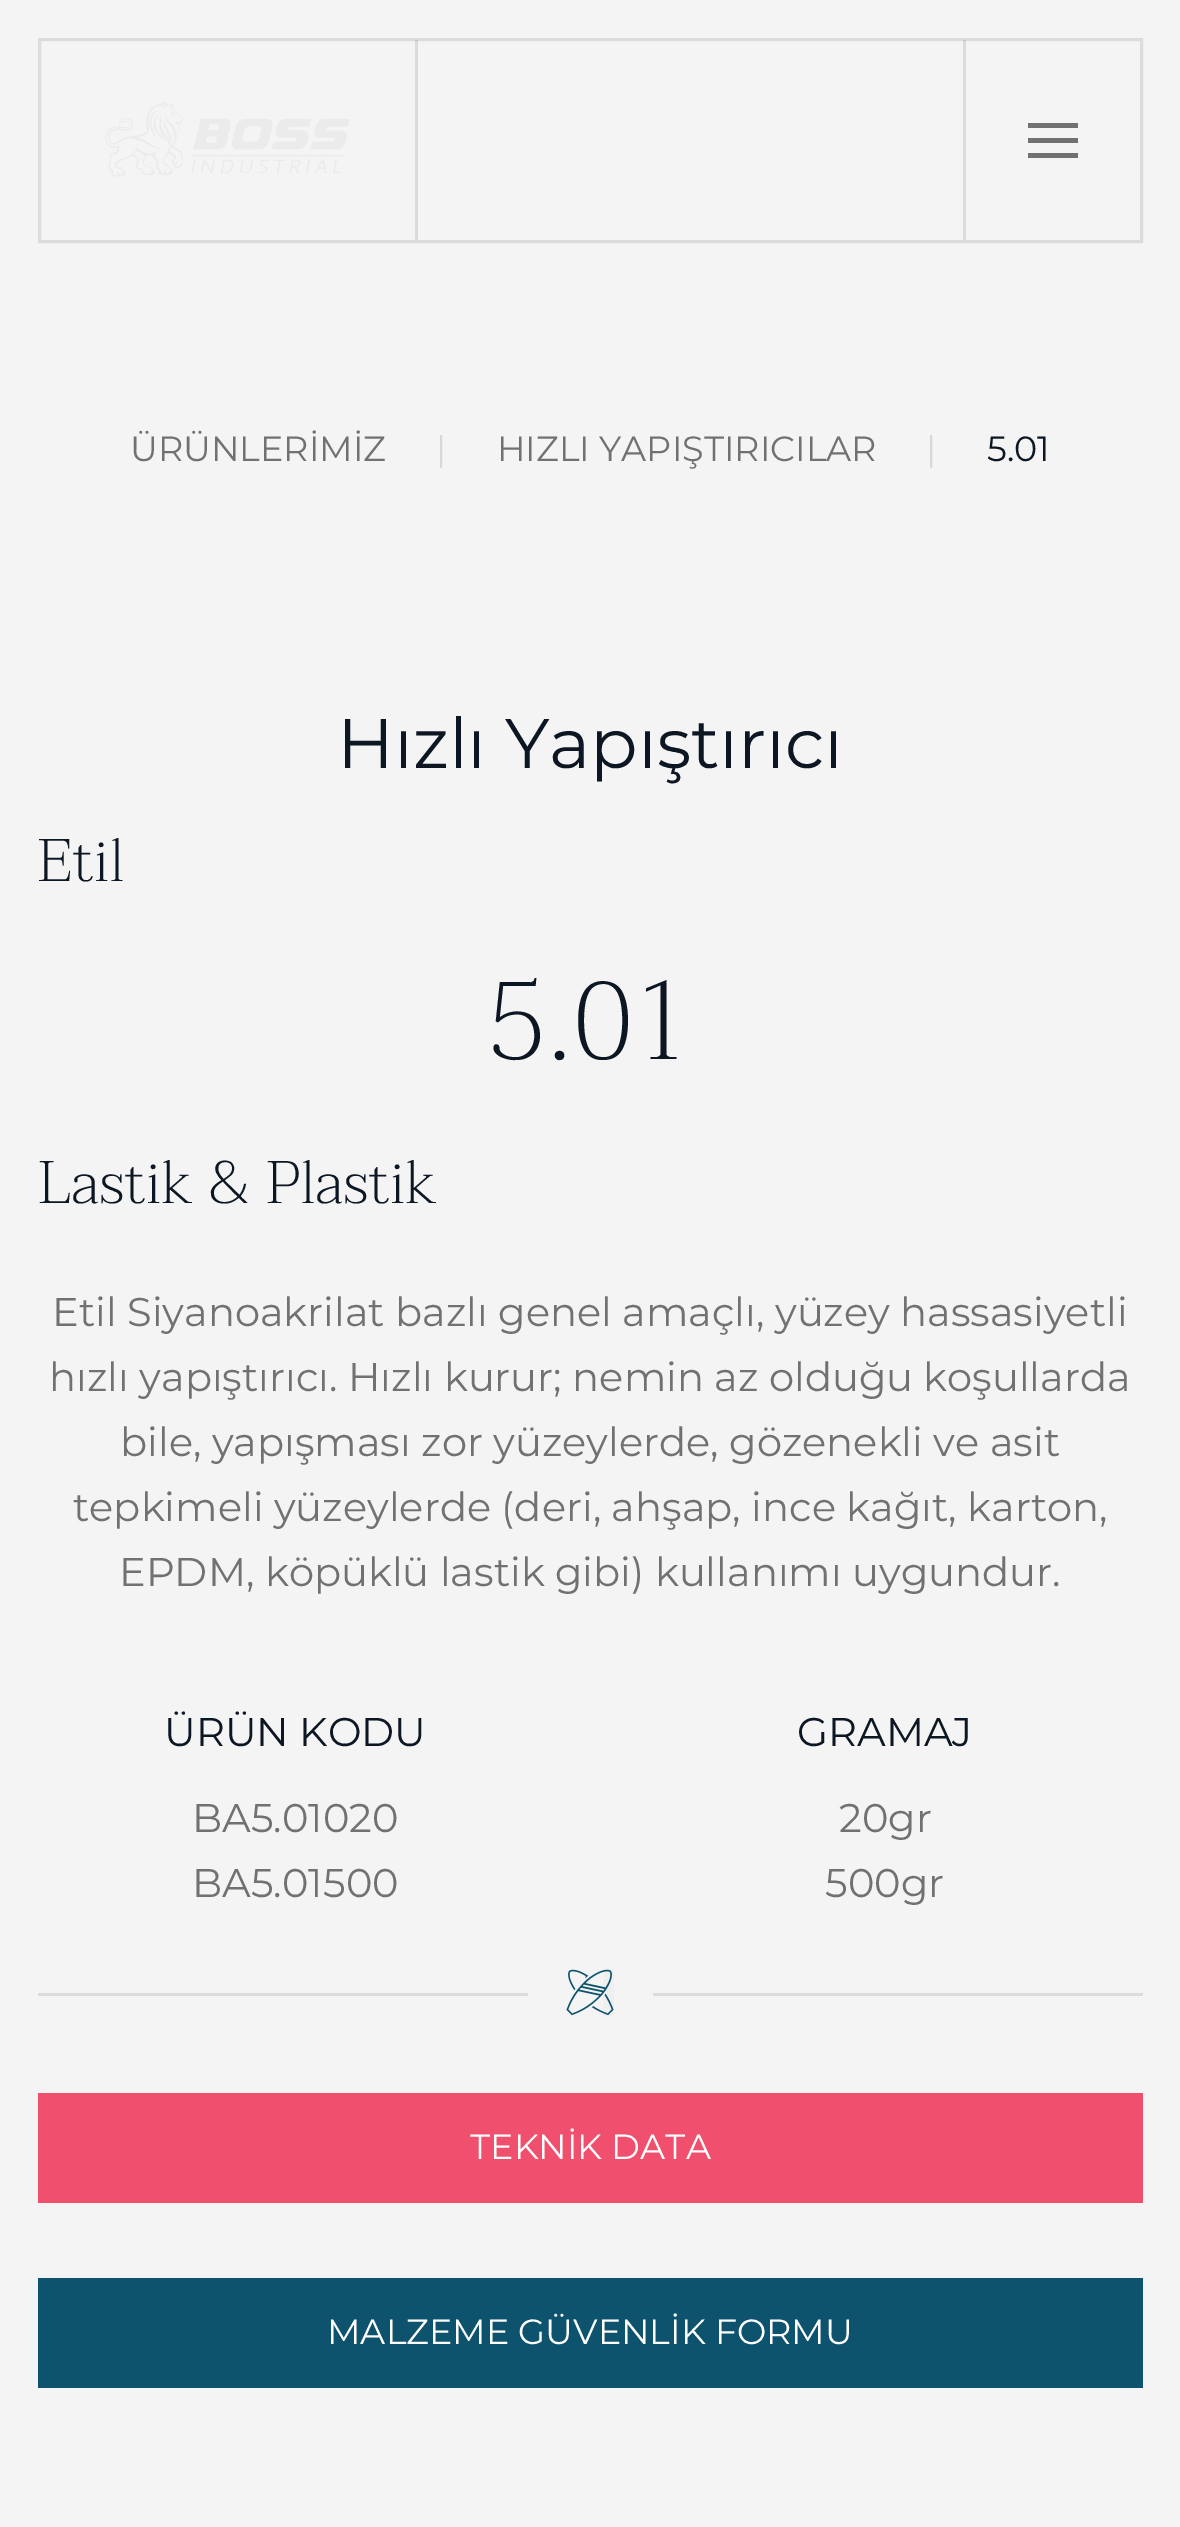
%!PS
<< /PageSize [1180 2527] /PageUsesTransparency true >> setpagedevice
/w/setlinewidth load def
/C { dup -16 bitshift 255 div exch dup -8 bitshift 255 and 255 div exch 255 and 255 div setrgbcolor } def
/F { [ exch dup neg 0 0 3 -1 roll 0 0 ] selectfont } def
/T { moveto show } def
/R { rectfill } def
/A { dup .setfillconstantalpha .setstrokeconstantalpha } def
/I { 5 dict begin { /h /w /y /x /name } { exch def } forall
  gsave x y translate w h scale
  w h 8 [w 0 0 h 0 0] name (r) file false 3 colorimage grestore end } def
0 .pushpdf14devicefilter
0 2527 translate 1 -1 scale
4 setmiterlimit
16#F4F4F4 C
0 0 1180 2527 R
16#DCDCDC C
3 w
39.5 39.5 1102 202 rectstroke
0.1 A
16#000000 C
415 40 3 200 R
1 A
(1.rgb) 105 102 245 75 I
0.1 A
963 40 3 200 R
1 A
16#717171 C
1028 123 50 5 R
1028 138 50 5 R
1028 153 50 5 R
16#DCDCDC C
653 1993 490 3 R
38 1993 490 3 R
/Montserrat-Thin 35 F
16#717171 C
(ÜRÜNLERİMİZ) 130 461 T
16#D7D7D7 C
(|) 436 461 T
16#717171 C
(HIZLI YAPIŞTIRICILAR) 497 461 T
16#D7D7D7 C
(|) 926 461 T
16#0D1724 C
(5.01) 987 461 T
/Montserrat-Thin 70 F
(Hızlı Yapıştırıcı) 337 768 T
/Taviraj-ExtraLight 60 F
(Etil) 38 881 T
/Taviraj-ExtraLight 110 F
(5.01) 487 1059 T
/Taviraj-ExtraLight 60 F
(Lastik & Plastik) 38 1203 T
/Montserrat-Thin 40 F
16#717171 C
(Etil Siyanoakrilat bazlı genel amaçlı, yüzey hassasiyetli) 52 1326 T
(hızlı yapıştırıcı. Hızlı kurur; nemin az olduğu koşullarda) 49 1391 T
(bile, yapışması zor yüzeylerde, gözenekli ve asit) 120 1456 T
(tepkimeli yüzeylerde \(deri, ahşap, ince kağıt, karton,) 73 1521 T
(EPDM, köpüklü lastik gibi\) kullanımı uygundur.) 119 1586 T
16#0D1724 C
(ÜRÜN KODU) 164 1746 T
16#717171 C
(BA5.01020) 192 1832 T
(BA5.01500) 192 1897 T
16#0D1724 C
(GRAMAJ) 797 1746 T
16#717171 C
(20gr) 839 1832 T
(500gr) 825 1897 T
(2.rgb) 566 1969 48 47 I
16#F0506E C
38 2093 1105 110 R
/Montserrat-Thin 35 F
16#FFFFFF C
(TEKNİK DATA) 470 2159 T
16#0E536D C
38 2278 1105 110 R
16#FFFFFF C
(MALZEME GÜVENLİK FORMU) 327 2344 T
.poppdf14devicefilter showpage
